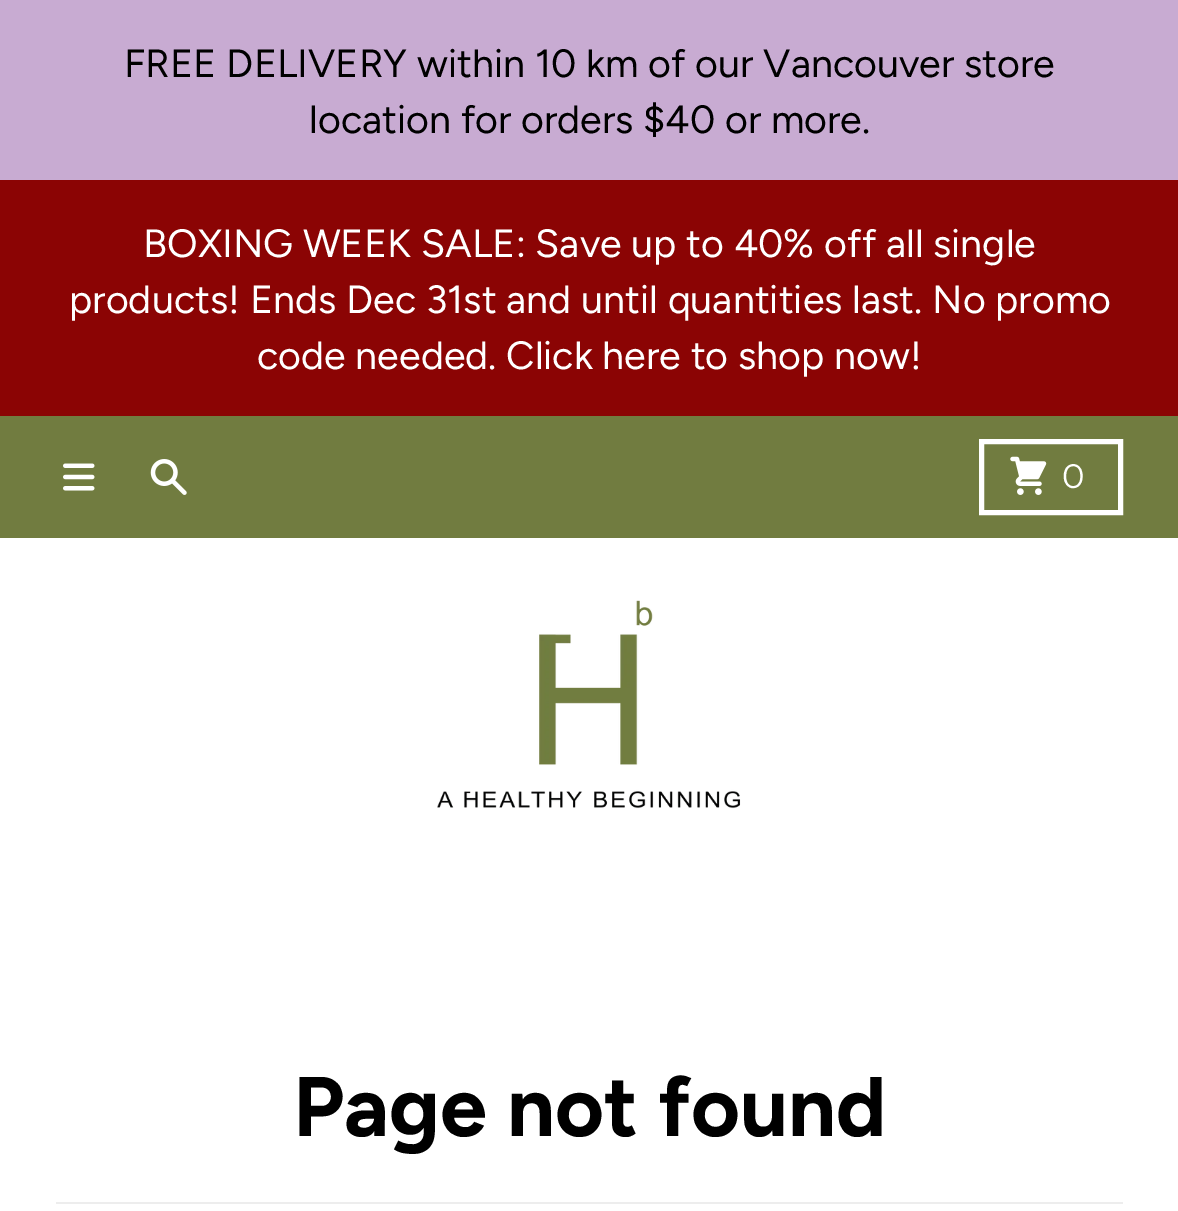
%!PS
<< /PageSize [1178 1211] >> setpagedevice
/w/setlinewidth load def
/C { dup -16 bitshift 255 div exch dup -8 bitshift 255 and 255 div exch 255 and 255 div setrgbcolor } def
/F { [ exch dup neg 0 0 3 -1 roll 0 0 ] selectfont } def
/T { moveto show } def
/R { rectfill } def
/I { 5 dict begin { /h /w /y /x /name } { exch def } forall
  gsave x y translate w h scale
  w h 8 [w 0 0 h 0 0] name (r) file false 3 colorimage grestore end } def
0 1211 translate 1 -1 scale
4 setmiterlimit
16#717C40 C
0 0 1178 1211 R
16#C8ABD2 C
0 0 1178 180 R
/Figtree-Regular 39.4 F
16#000000 C
(FREE DELIVERY within 10 km of our Vancouver store) 124 77 T
(location for orders $40 or more.) 309 133 T
16#8B0404 C
0 180 1178 236 R
16#FFFFFF C
(BOXING WEEK SALE: Save up to 40% off all single) 143 257 T
(products! Ends Dec 31st and until quantities last. No promo) 69 313 T
(code needed. Click here to shop now!) 257 369 T
(1.rgb) 63 463 32 28 I
(2.rgb) 150 459 37 36 I
5 w
981.5 441.5 139 71 rectstroke
(3.rgb) 1010 456 37 39 I
/Montserrat-Regular 34 F
(0) 1062 488 T
0 538 1178 673 R
(4.rgb) 437 600 304 209 I
16#EDEDED C
56 1202 1067 2 R
/Figtree-Bold 84.5 F
16#000000 C
(Page not found) 293 1136 T
showpage
